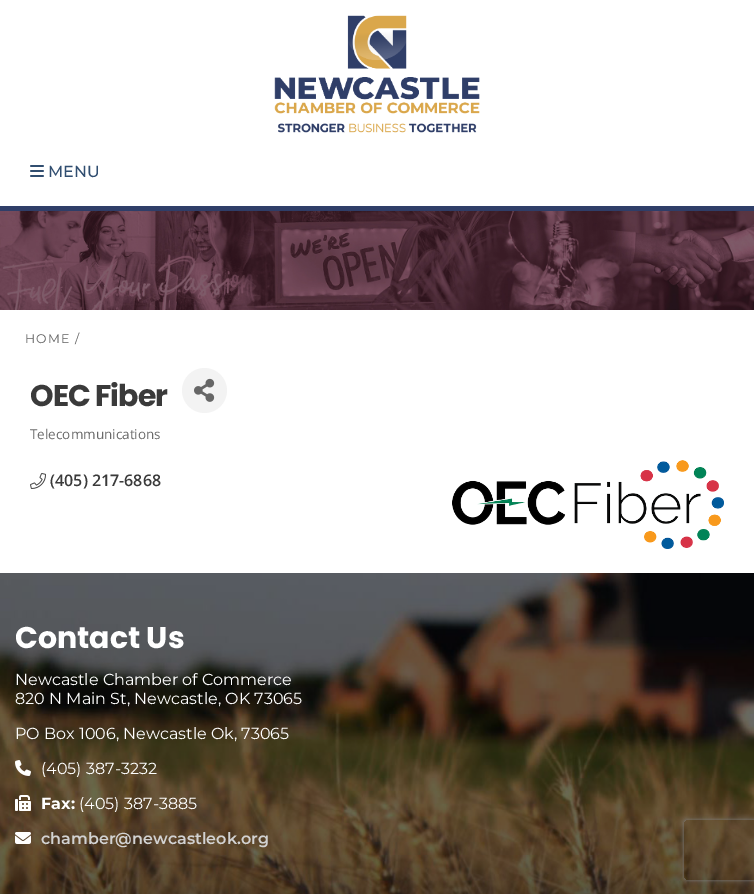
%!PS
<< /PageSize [754 894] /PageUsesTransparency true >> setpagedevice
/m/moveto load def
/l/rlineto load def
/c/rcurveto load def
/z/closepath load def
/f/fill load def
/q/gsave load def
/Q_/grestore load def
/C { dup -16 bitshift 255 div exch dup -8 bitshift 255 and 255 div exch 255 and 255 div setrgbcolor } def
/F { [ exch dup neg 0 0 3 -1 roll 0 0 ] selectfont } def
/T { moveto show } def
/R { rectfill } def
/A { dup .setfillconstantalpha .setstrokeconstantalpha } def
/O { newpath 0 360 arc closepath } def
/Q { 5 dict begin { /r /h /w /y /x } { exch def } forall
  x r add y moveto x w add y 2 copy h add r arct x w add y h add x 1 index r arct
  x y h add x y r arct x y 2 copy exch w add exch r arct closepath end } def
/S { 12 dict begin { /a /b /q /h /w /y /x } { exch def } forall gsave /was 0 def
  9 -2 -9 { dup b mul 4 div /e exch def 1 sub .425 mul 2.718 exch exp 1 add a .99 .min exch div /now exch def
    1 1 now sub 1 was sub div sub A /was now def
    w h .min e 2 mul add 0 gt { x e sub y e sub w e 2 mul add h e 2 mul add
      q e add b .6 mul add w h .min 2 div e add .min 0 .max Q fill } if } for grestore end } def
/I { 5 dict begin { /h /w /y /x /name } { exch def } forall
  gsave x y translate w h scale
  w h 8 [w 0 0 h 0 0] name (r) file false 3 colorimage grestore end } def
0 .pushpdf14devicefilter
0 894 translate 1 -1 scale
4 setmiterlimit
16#FFFFFF C
0 0 754 894 R
16#2F3E68 C
0 206 754 5 R
(1.rgb) 274 15 206 118 I
(2.rgb) 30 165 14 12 I
/Montserrat-Medium 16 F
16#314E70 C
(MENU) 48 177 T
(3.rgb) 0 211 754 99 I
/Montserrat-Regular 12.5 F
16#5F5F5F C
25 343 m 1.25 0 (HOME /) ashow
/Poppins-Bold 30 F
16#3A3A3A C
30 406 m -1 0 (OEC Fiber) ashow
16#F3F3F3 C
204.5 390.5 22.5 O f
(4.rgb) 194 378 21 24 I
/OpenSans-Regular 13.5 F
16#696969 C
(Telecommunications) 30 439 T
(5.rgb) 30 473 16 16 I
/OpenSans-SemiBold 16 F
16#3A3A3A C
(\(405\) 217-6868) 50 486 T
(6.rgb) 452 460 272 89 I
(7.rgb) 0 573 754 321 I
/Poppins-Bold 30 F
16#FFFFFF C
(Contact Us) 15 648 T
/Montserrat-Regular 16 F
(Newcastle Chamber of Commerce) 15 685 T
(820 N Main St, Newcastle, OK 73065) 15 704 T
(PO Box 1006, Newcastle Ok, 73065) 15 739 T
(8.rgb) 15 760 16 16 I
(\(405\) 387-3232) 41 774 T
(9.rgb) 15 795 16 16 I
/Montserrat-Bold 16 F
(Fax:) 41 809 T
/Montserrat-Regular 16 F
(\(405\) 387-3885) 79 809 T
(10.rgb) 15 832 16 12 I
/Montserrat-SemiBold 16 F
16#D2D2D2 C
(chamber@newcastleok.org) 41 844 T
q
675 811 m 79 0 l 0 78 l -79 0 l z 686 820 m 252 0 l 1 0 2 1 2 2 c 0 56 l 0 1 -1 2 -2 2 c -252 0 l -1 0 -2 -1 -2 -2 c 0 -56 l 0 -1 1 -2 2 -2 c z eoclip newpath
16#808080 C
684 820 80 60 2 2.5 1 S
Q_
.poppdf14devicefilter showpage
